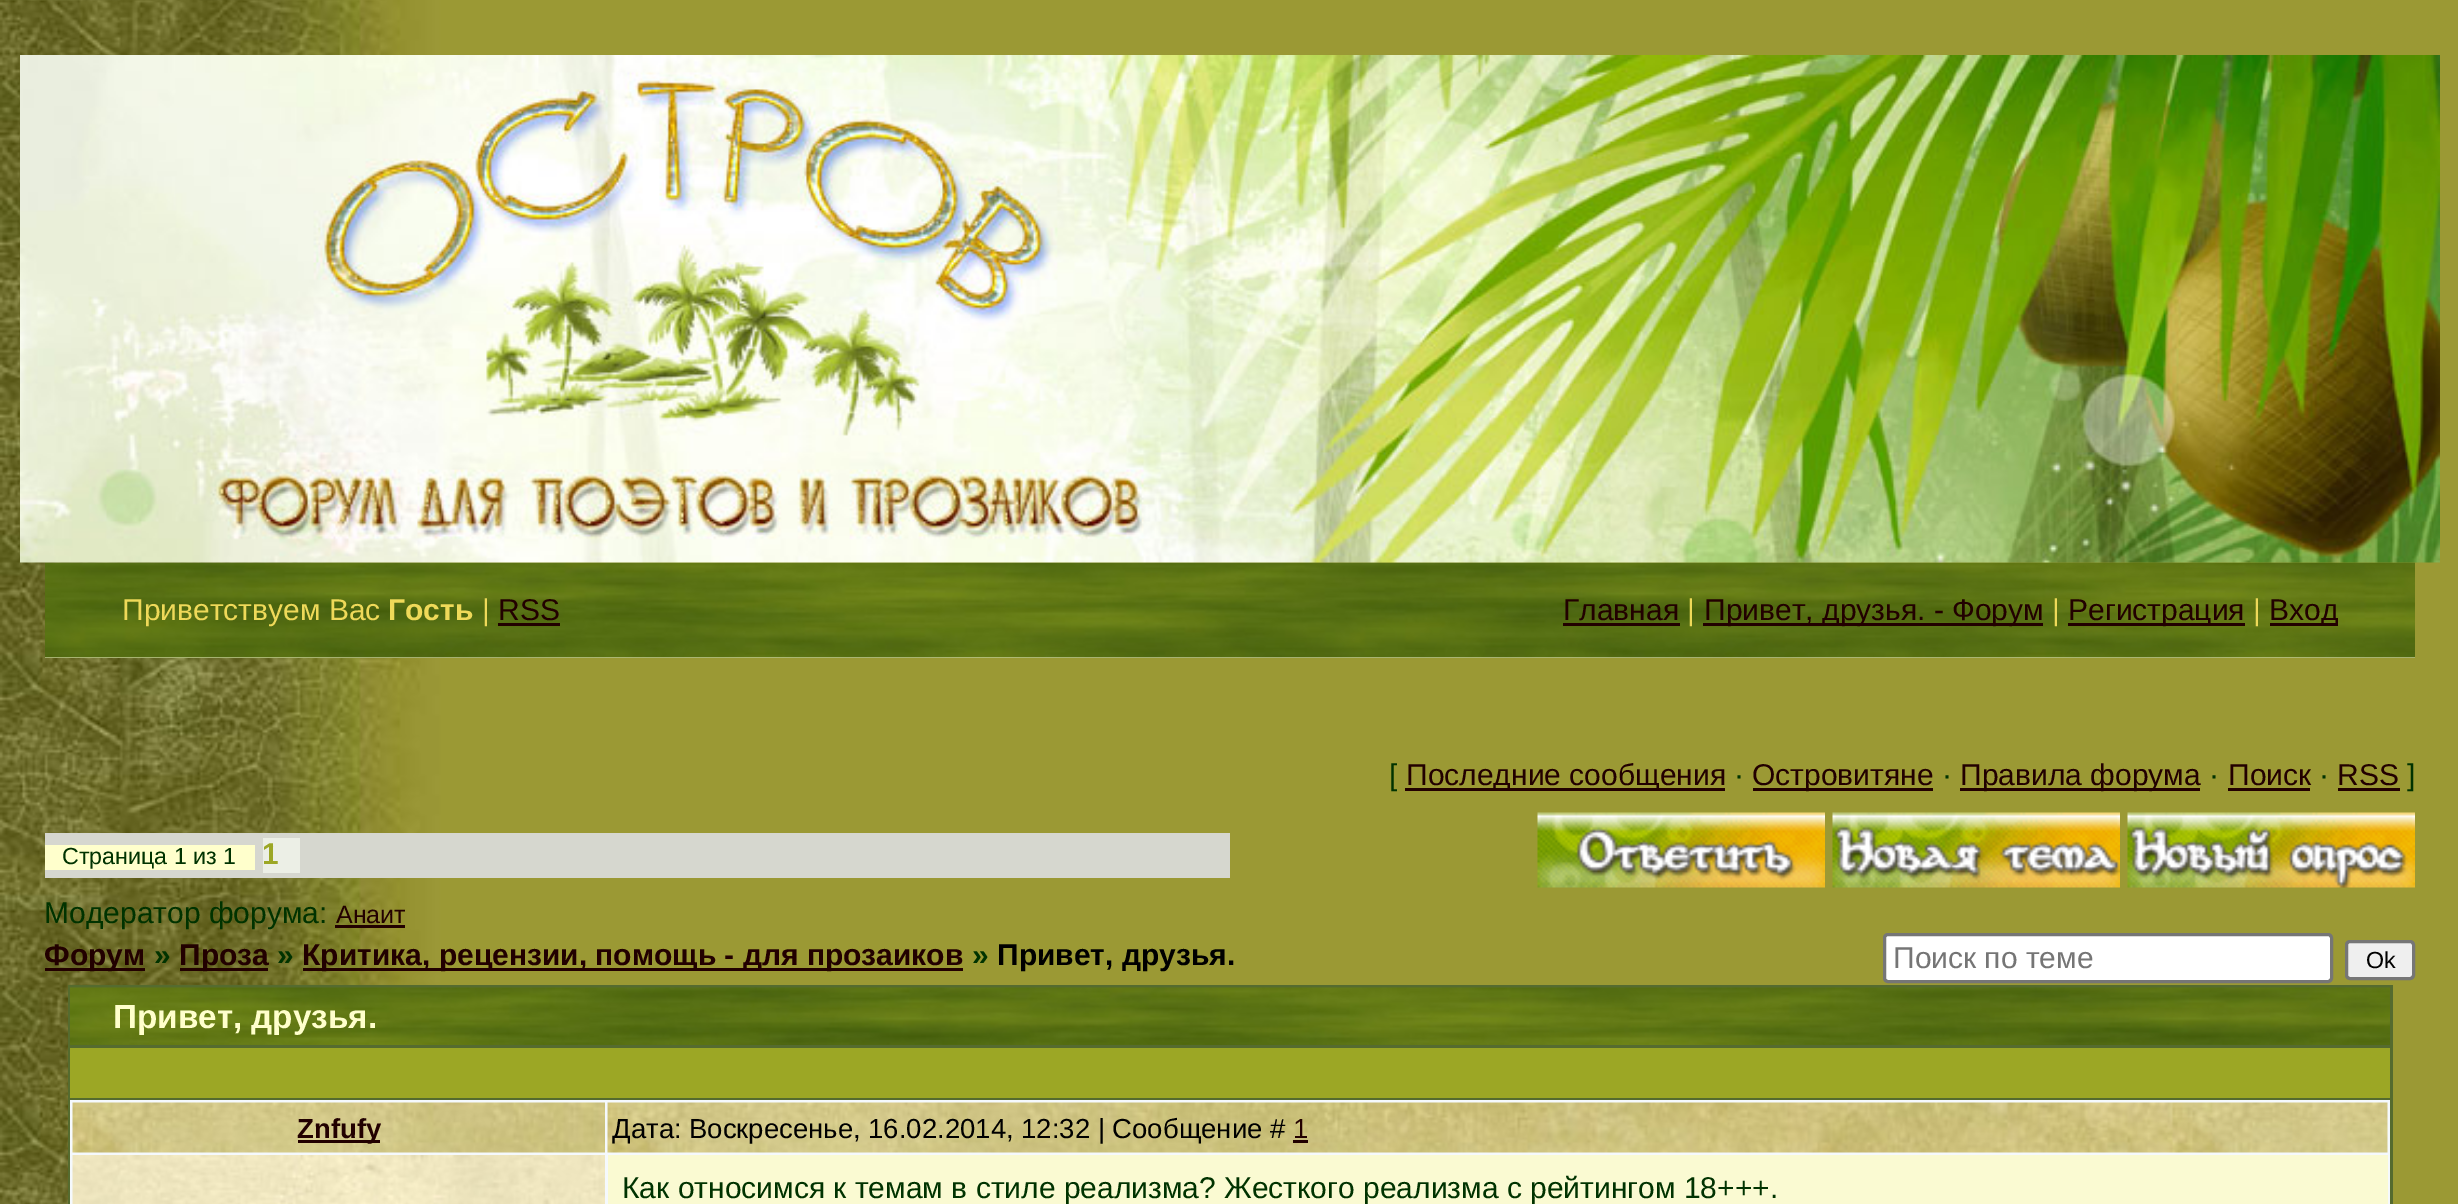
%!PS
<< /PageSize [2458 1204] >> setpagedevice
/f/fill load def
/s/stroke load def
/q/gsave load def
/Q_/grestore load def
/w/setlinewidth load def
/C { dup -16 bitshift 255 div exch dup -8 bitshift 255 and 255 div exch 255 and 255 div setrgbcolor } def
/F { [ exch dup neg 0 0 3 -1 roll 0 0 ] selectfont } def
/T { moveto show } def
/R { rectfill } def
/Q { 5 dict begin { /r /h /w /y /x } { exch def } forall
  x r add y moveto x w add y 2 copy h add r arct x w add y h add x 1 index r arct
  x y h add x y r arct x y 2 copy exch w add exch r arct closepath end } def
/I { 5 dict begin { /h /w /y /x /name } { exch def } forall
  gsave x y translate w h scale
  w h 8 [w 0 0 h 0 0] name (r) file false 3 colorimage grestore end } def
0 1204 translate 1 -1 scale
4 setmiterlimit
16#FFFFFF C
0 0 2458 1204 R
(1.rgb) 0 0 2458 1204 I
16#FAFAD2 C
45 657 2370 1 R
(3.rgb) 45 562 2370 96 I
(2.rgb) 20 55 2420 508 I
/LiberationSans-Regular 30 F
16#EFD959 C
(Приветствуем Вас) 122 620 T
/LiberationSans-Bold 30 F
(Гость) 388 620 T
/LiberationSans-Regular 30 F
(|) 482 620 T
16#220000 C
(RSS) 498 620 T
498 623 62 3 R
(Главная) 1563 620 T
1563 623 117 3 R
16#EFD959 C
(|) 1687 620 T
16#220000 C
1703 623 340 3 R
(Привет, друзья. - Форум) 1704 620 T
16#EFD959 C
(|) 2052 620 T
16#220000 C
2068 623 177 3 R
(Регистрация) 2068 620 T
16#EFD959 C
(|) 2253 620 T
16#220000 C
2270 623 68 3 R
(Вход) 2269 620 T
16#003300 C
([) 1389 785 T
16#220000 C
1405 788 320 3 R
(Последние сообщения) 1406 785 T
16#003300 C
(·) 1734 785 T
16#220000 C
1753 788 180 3 R
(Островитяне) 1752 785 T
16#003300 C
(·) 1942 785 T
16#220000 C
1960 788 240 3 R
(Правила форума) 1960 785 T
16#003300 C
(·) 2209 785 T
16#220000 C
(Поиск) 2228 785 T
2228 788 82 3 R
16#003300 C
(·) 2319 785 T
16#220000 C
(RSS) 2337 785 T
2338 788 62 3 R
16#003300 C
(]) 2407 785 T
16#D6D7CF C
45 833 1185 45 R
16#FFFFCC C
45 845 210 25 R
/LiberationSans-Regular 23.25 F
16#003300 C
(Страница 1 из 1) 62 864 T
16#ECEFE6 C
263 838 37 35 R
/LiberationSans-Bold 30 F
16#9CA725 C
(1) 262 864 T
(4.rgb) 1537 812 288 76 I
(5.rgb) 1832 812 288 76 I
(6.rgb) 2127 812 288 76 I
/LiberationSans-Regular 30 F
16#003300 C
(Модератор форума:) 44 923 T
/LiberationSans-Regular 25 F
16#220000 C
(Анаит) 336 923 T
335 925 70 3 R
45 968 100 3 R
/LiberationSans-Bold 30 F
(Форум) 44 965 T
16#003300 C
(») 154 965 T
16#220000 C
180 968 88 3 R
(Проза) 179 965 T
16#003300 C
(») 277 965 T
16#220000 C
303 968 660 3 R
(Критика, рецензии, помощь - для прозаиков) 302 965 T
16#003300 C
(») 972 965 T
16#000000 C
(Привет, друзья.) 997 965 T
16#FFFFFF C
1884.5 934.5 447 47 3.5 Q q f Q_
16#767676 C
3 w
s
/LiberationSans-Regular 30 F
16#757575 C
(Поиск по теме) 1893 968 T
16#EFEFEF C
2346.5 941.5 67 37 3.5 Q q f Q_
16#767676 C
s
/LiberationSans-Regular 23.25 F
16#000000 C
(Ok) 2366 968 T
16#556B2F C
68 985 2325 219 R
(7.rgb) 70 987 2320 58 I
/LiberationSans-Bold 33.25 F
16#FFFFCC C
(Привет, друзья.) 113 1028 T
16#9CA725 C
70 1048 2320 50 R
16#F5F9FD C
70 1100 2320 104 R
(8.rgb) 72 1102 533 51 I
16#220000 C
298 1140 82 3 R
/LiberationSans-Bold 27.5 F
(Znfufy) 297 1138 T
(9.rgb) 607 1102 1781 51 I
/LiberationSans-Regular 27.5 F
16#000000 C
(Дата: Воскресенье, 16.02.2014, 12:32 | Сообщение #) 612 1138 T
16#220000 C
(1) 1293 1138 T
1293 1140 15 3 R
(10.rgb) 72 1155 533 49 I
16#FAFAD2 C
608 1155 1780 49 R
/LiberationSans-Regular 30 F
16#003300 C
(Как относимся к темам в стиле реализма? Жесткого реализма с рейтингом 18+++.) 622 1198 T
showpage
